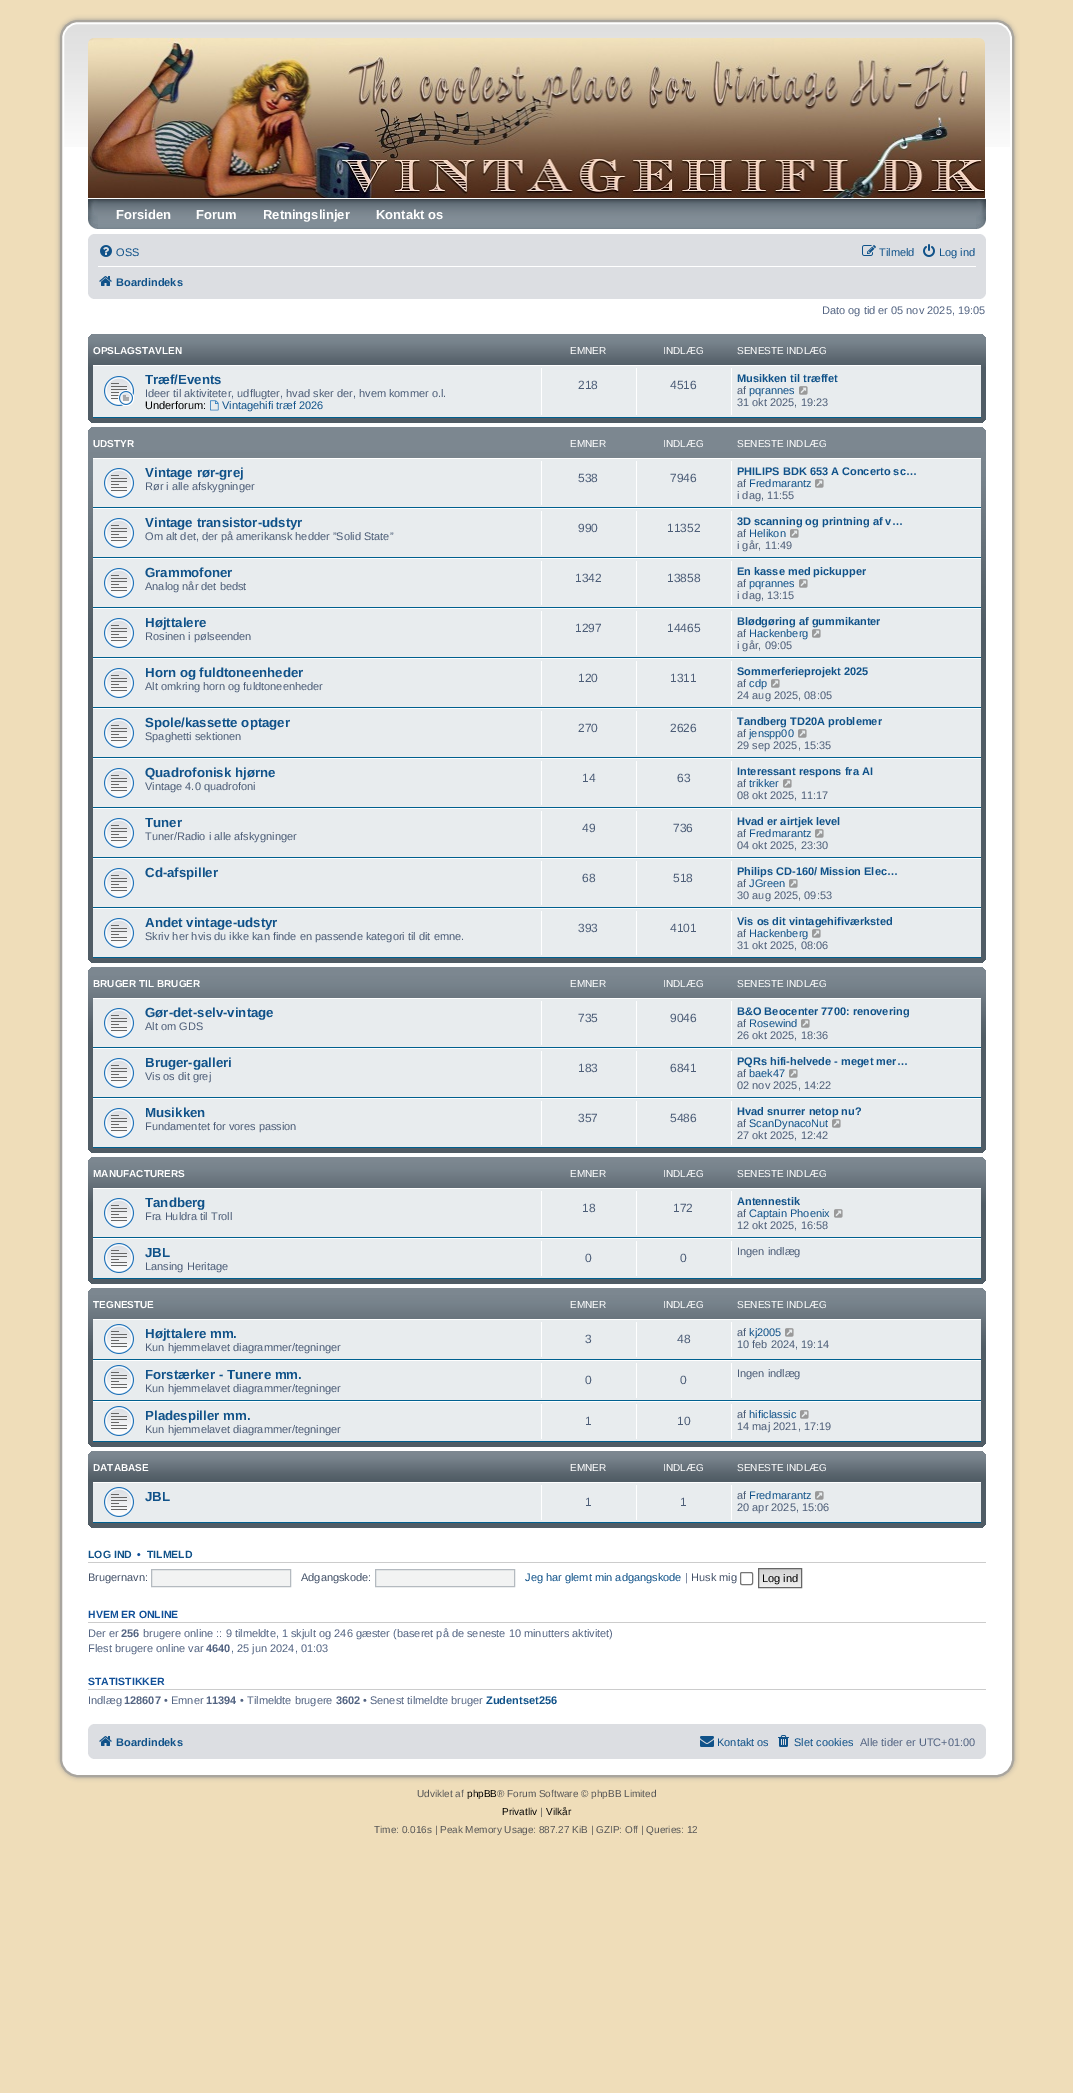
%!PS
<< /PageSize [1073 2093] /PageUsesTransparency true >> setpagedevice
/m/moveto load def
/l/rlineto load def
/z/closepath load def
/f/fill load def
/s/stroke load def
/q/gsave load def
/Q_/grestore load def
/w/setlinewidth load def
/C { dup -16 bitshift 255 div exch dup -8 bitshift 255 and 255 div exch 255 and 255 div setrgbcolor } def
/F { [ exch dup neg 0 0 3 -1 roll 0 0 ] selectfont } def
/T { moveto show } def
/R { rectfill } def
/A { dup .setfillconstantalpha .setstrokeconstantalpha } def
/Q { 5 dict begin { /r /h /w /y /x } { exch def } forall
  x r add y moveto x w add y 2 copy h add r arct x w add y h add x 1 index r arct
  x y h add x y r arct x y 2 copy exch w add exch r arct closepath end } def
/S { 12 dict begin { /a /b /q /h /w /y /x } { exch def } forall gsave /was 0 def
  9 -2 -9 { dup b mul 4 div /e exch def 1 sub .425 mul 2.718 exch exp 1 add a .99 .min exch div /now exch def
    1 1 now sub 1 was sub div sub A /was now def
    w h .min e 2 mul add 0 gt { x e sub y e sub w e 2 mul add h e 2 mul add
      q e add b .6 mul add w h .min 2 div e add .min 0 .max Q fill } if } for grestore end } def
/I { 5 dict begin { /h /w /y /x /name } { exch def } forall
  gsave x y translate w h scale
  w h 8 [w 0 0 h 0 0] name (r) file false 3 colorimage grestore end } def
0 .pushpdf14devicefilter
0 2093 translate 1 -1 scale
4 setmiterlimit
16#EFDDB9 C
0 0 1073 2093 R
16#9E9B94 C
60 20 954 1757 18 2.5 1 S
16#FFFFFF C
62 22 950 1753 16 Q f
(1.rgb) 62 24 950 123 I
2 w
63 23 948 1751 15 Q s
(2.rgb) 88 38 897 160 I
16#DCDEE2 C
88 234 898 65 7 Q f
(6.rgb) 100 245 12 12 I
(7.rgb) 862 245 14 11 I
(8.rgb) 923 244 12 13 I
16#FFFFFF C
98 266 878 1 R
q 88 334 898 89 7 Q clip newpath
<< /ShadingType 2 /ColorSpace /DeviceRGB /Coords [537 334 537 423] /Extend [true true] /Function << /FunctionType 3 /Domain [0 1] /Functions [<< /FunctionType 2 /Domain [0 1] /C0 [.486 .533 .569] /C1 [.486 .529 .565] /N 1 >> << /FunctionType 2 /Domain [0 1] /C0 [.486 .529 .565] /C1 [.463 .51 .545] /N 1 >> << /FunctionType 2 /Domain [0 1] /C0 [.463 .51 .545] /C1 [.357 .4 .435] /N 1 >> << /FunctionType 2 /Domain [0 1] /C0 [.357 .4 .435] /C1 [.314 .361 .396] /N 1 >> << /FunctionType 2 /Domain [0 1] /C0 [.314 .361 .396] /C1 [.314 .361 .396] /N 1 >>] /Bounds [.04 .1 .29 .38] /Encode [0 1 0 1 0 1 0 1 0 1] >> >> shfill Q_
16#E8ECEE C
93 366 888 51 R
16#FFFFFF C
93 365 888 1 R
16#00608F C
93 417 888 1 R
q 88 427 898 536 7 Q clip newpath
<< /ShadingType 2 /ColorSpace /DeviceRGB /Coords [537 427 537 963] /Extend [true true] /Function << /FunctionType 3 /Domain [0 1] /Functions [<< /FunctionType 2 /Domain [0 1] /C0 [.486 .533 .569] /C1 [.486 .529 .565] /N 1 >> << /FunctionType 2 /Domain [0 1] /C0 [.486 .529 .565] /C1 [.463 .51 .545] /N 1 >> << /FunctionType 2 /Domain [0 1] /C0 [.463 .51 .545] /C1 [.357 .4 .435] /N 1 >> << /FunctionType 2 /Domain [0 1] /C0 [.357 .4 .435] /C1 [.314 .361 .396] /N 1 >> << /FunctionType 2 /Domain [0 1] /C0 [.314 .361 .396] /C1 [.314 .361 .396] /N 1 >>] /Bounds [.04 .1 .29 .38] /Encode [0 1 0 1 0 1 0 1 0 1] >> >> shfill Q_
16#E8ECEE C
93 459 888 48 R
16#FFFFFF C
93 458 888 1 R
16#00608F C
93 507 888 1 R
16#E8ECEE C
93 509 888 48 R
16#FFFFFF C
93 508 888 1 R
16#00608F C
93 557 888 1 R
16#E8ECEE C
93 559 888 48 R
16#FFFFFF C
93 558 888 1 R
16#00608F C
93 607 888 1 R
16#E8ECEE C
93 609 888 48 R
16#FFFFFF C
93 608 888 1 R
16#00608F C
93 657 888 1 R
16#E8ECEE C
93 659 888 48 R
16#FFFFFF C
93 658 888 1 R
16#00608F C
93 707 888 1 R
16#E8ECEE C
93 709 888 48 R
16#FFFFFF C
93 708 888 1 R
16#00608F C
93 757 888 1 R
16#E8ECEE C
93 759 888 48 R
16#FFFFFF C
93 758 888 1 R
16#00608F C
93 807 888 1 R
16#E8ECEE C
93 809 888 48 R
16#FFFFFF C
93 808 888 1 R
16#00608F C
93 857 888 1 R
16#E8ECEE C
93 859 888 48 R
16#FFFFFF C
93 858 888 1 R
16#00608F C
93 907 888 1 R
16#E8ECEE C
93 909 888 48 R
16#FFFFFF C
93 908 888 1 R
16#00608F C
93 957 888 1 R
q 88 967 898 186 7 Q clip newpath
<< /ShadingType 2 /ColorSpace /DeviceRGB /Coords [537 967 537 1153] /Extend [true true] /Function << /FunctionType 3 /Domain [0 1] /Functions [<< /FunctionType 2 /Domain [0 1] /C0 [.486 .533 .569] /C1 [.486 .529 .565] /N 1 >> << /FunctionType 2 /Domain [0 1] /C0 [.486 .529 .565] /C1 [.463 .51 .545] /N 1 >> << /FunctionType 2 /Domain [0 1] /C0 [.463 .51 .545] /C1 [.357 .4 .435] /N 1 >> << /FunctionType 2 /Domain [0 1] /C0 [.357 .4 .435] /C1 [.314 .361 .396] /N 1 >> << /FunctionType 2 /Domain [0 1] /C0 [.314 .361 .396] /C1 [.314 .361 .396] /N 1 >>] /Bounds [.04 .1 .29 .38] /Encode [0 1 0 1 0 1 0 1 0 1] >> >> shfill Q_
16#E8ECEE C
93 999 888 48 R
16#FFFFFF C
93 998 888 1 R
16#00608F C
93 1047 888 1 R
16#E8ECEE C
93 1049 888 48 R
16#FFFFFF C
93 1048 888 1 R
16#00608F C
93 1097 888 1 R
16#E8ECEE C
93 1099 888 48 R
16#FFFFFF C
93 1098 888 1 R
16#00608F C
93 1147 888 1 R
q 88 1157 898 127 7 Q clip newpath
<< /ShadingType 2 /ColorSpace /DeviceRGB /Coords [537 1157 537 1284] /Extend [true true] /Function << /FunctionType 3 /Domain [0 1] /Functions [<< /FunctionType 2 /Domain [0 1] /C0 [.486 .533 .569] /C1 [.486 .529 .565] /N 1 >> << /FunctionType 2 /Domain [0 1] /C0 [.486 .529 .565] /C1 [.463 .51 .545] /N 1 >> << /FunctionType 2 /Domain [0 1] /C0 [.463 .51 .545] /C1 [.357 .4 .435] /N 1 >> << /FunctionType 2 /Domain [0 1] /C0 [.357 .4 .435] /C1 [.314 .361 .396] /N 1 >> << /FunctionType 2 /Domain [0 1] /C0 [.314 .361 .396] /C1 [.314 .361 .396] /N 1 >>] /Bounds [.04 .1 .29 .38] /Encode [0 1 0 1 0 1 0 1 0 1] >> >> shfill Q_
16#E8ECEE C
93 1189 888 48 R
16#FFFFFF C
93 1188 888 1 R
16#00608F C
93 1237 888 1 R
16#E8ECEE C
93 1239 888 39 R
16#FFFFFF C
93 1238 888 1 R
16#00608F C
93 1278 888 1 R
q 88 1288 898 159 7 Q clip newpath
<< /ShadingType 2 /ColorSpace /DeviceRGB /Coords [537 1288 537 1447] /Extend [true true] /Function << /FunctionType 3 /Domain [0 1] /Functions [<< /FunctionType 2 /Domain [0 1] /C0 [.486 .533 .569] /C1 [.486 .529 .565] /N 1 >> << /FunctionType 2 /Domain [0 1] /C0 [.486 .529 .565] /C1 [.463 .51 .545] /N 1 >> << /FunctionType 2 /Domain [0 1] /C0 [.463 .51 .545] /C1 [.357 .4 .435] /N 1 >> << /FunctionType 2 /Domain [0 1] /C0 [.357 .4 .435] /C1 [.314 .361 .396] /N 1 >> << /FunctionType 2 /Domain [0 1] /C0 [.314 .361 .396] /C1 [.314 .361 .396] /N 1 >>] /Bounds [.04 .1 .29 .38] /Encode [0 1 0 1 0 1 0 1 0 1] >> >> shfill Q_
16#E8ECEE C
93 1320 888 39 R
16#FFFFFF C
93 1319 888 1 R
16#00608F C
93 1359 888 1 R
16#E8ECEE C
93 1361 888 39 R
16#FFFFFF C
93 1360 888 1 R
16#00608F C
93 1400 888 1 R
16#E8ECEE C
93 1402 888 39 R
16#FFFFFF C
93 1401 888 1 R
16#00608F C
93 1441 888 1 R
q 88 1451 898 77 7 Q clip newpath
<< /ShadingType 2 /ColorSpace /DeviceRGB /Coords [537 1451 537 1528] /Extend [true true] /Function << /FunctionType 3 /Domain [0 1] /Functions [<< /FunctionType 2 /Domain [0 1] /C0 [.486 .533 .569] /C1 [.486 .529 .565] /N 1 >> << /FunctionType 2 /Domain [0 1] /C0 [.486 .529 .565] /C1 [.463 .51 .545] /N 1 >> << /FunctionType 2 /Domain [0 1] /C0 [.463 .51 .545] /C1 [.357 .4 .435] /N 1 >> << /FunctionType 2 /Domain [0 1] /C0 [.357 .4 .435] /C1 [.314 .361 .396] /N 1 >> << /FunctionType 2 /Domain [0 1] /C0 [.314 .361 .396] /C1 [.314 .361 .396] /N 1 >>] /Bounds [.04 .1 .29 .38] /Encode [0 1 0 1 0 1 0 1 0 1] >> >> shfill Q_
16#E8ECEE C
93 1483 888 39 R
16#FFFFFF C
93 1482 888 1 R
16#00608F C
93 1522 888 1 R
16#CCCCCC C
88 1562 898 1 R
16#F2F3F3 C
151.5 1569.5 m 139 0 l 0 17 l -139 0 l z q f Q_
16#B4BAC0 C
1 w
s
16#F2F3F3 C
375.5 1569.5 m 139 0 l 0 17 l -139 0 l z q f Q_
16#B4BAC0 C
s
16#767676 C
740.5 1572.5 12 12 1.5 Q s
16#CCCCCC C
88 1622 898 1 R
88 1689 898 1 R
16#DCDEE2 C
88 1724 898 35 7 Q f
(14.rgb) 700 1736 14 11 I
(15.rgb) 778 1735 11 12 I
16#A9A59E C
2 w
61 21 952 1755 17 Q s
(3.rgb) 88 199 898 30 I
(4.rgb) 88 200 10 29 I
/LiberationSans-Bold 13 F
16#FFFFFF C
(Forsiden) 116 219 T
(Forum) 196 219 T
(Retningslinjer) 263 219 T
(Kontakt os) 376 219 T
(5.rgb) 976 200 10 29 I
/LiberationSans-Regular 11 F
16#105289 C
(OSS) 116 256 T
(Tilmeld) 879 256 T
(Log ind) 939 256 T
(9.rgb) 99 276 13 10 I
/LiberationSans-Bold 11 F
(Boardindeks) 116 286 T
/LiberationSans-Regular 11 F
16#536482 C
(Dato og tid er 05 nov 2025, 19:05) 822 314 T
/LiberationSans-Bold 10 F
16#FFFFFF C
(OPSLAGSTAVLEN) 93 354 T
/LiberationSans-Regular 10 F
(EMNER) 570 354 T
(INDLÆG) 663 354 T
(SENESTE INDLÆG) 737 354 T
(10.rgb) 104 376 30 30 I
/LiberationSans-Bold 13.25 F
16#105289 C
(Træf/Events) 145 384 T
/LiberationSans-Regular 11 F
16#4C5D77 C
(Ideer til aktiviteter, udflugter, hvad sker der, hvem kommer o.l.) 145 397 T
16#000000 C
(Underforum:) 145 409 T
(11.rgb) 210 400 9 11 I
16#105289 C
(Vintagehifi træf 2026) 222 409 T
16#FFFFFF C
541 368 1 47 R
/LiberationSans-Regular 12 F
16#4C5D77 C
(218) 578 389 T
16#FFFFFF C
636 368 1 47 R
16#4C5D77 C
(4516) 670 389 T
16#FFFFFF C
731 368 1 47 R
/LiberationSans-Bold 11 F
16#105289 C
(Musikken til træffet) 737 382 T
/LiberationSans-Regular 11 F
16#4C5D77 C
(af) 737 394 T
16#105289 C
(pqrannes) 749 394 T
(12.rgb) 799 386 9 9 I
16#4C5D77 C
(31 okt 2025, 19:23) 737 406 T
/LiberationSans-Bold 10 F
16#FFFFFF C
(UDSTYR) 93 447 T
/LiberationSans-Regular 10 F
(EMNER) 570 447 T
(INDLÆG) 663 447 T
(SENESTE INDLÆG) 737 447 T
(13.rgb) 104 468 30 30 I
/LiberationSans-Bold 13.25 F
16#105289 C
(Vintage rør-grej) 145 477 T
/LiberationSans-Regular 11 F
16#4C5D77 C
(Rør i alle afskygninger) 145 490 T
16#FFFFFF C
541 461 1 44 R
/LiberationSans-Regular 12 F
16#4C5D77 C
(538) 578 482 T
16#FFFFFF C
636 461 1 44 R
16#4C5D77 C
(7946) 670 482 T
16#FFFFFF C
731 461 1 44 R
/LiberationSans-Bold 11 F
16#105289 C
(PHILIPS BDK 653 A Concerto sc…) 737 475 T
/LiberationSans-Regular 11 F
16#4C5D77 C
(af) 737 487 T
16#105289 C
(Fredmarantz) 749 487 T
(12.rgb) 815 479 9 9 I
16#4C5D77 C
(i dag, 11:55) 737 499 T
(13.rgb) 104 518 30 30 I
/LiberationSans-Bold 13.25 F
16#105289 C
(Vintage transistor-udstyr) 145 527 T
/LiberationSans-Regular 11 F
16#4C5D77 C
(Om alt det, der på amerikansk hedder ”Solid State”) 145 540 T
16#FFFFFF C
541 511 1 44 R
/LiberationSans-Regular 12 F
16#4C5D77 C
(990) 578 532 T
16#FFFFFF C
636 511 1 44 R
16#4C5D77 C
(11352) 667 532 T
16#FFFFFF C
731 511 1 44 R
/LiberationSans-Bold 11 F
16#105289 C
(3D scanning og printning af v…) 737 525 T
/LiberationSans-Regular 11 F
16#4C5D77 C
(af) 737 537 T
16#105289 C
(Helikon) 749 537 T
(12.rgb) 790 529 9 9 I
16#4C5D77 C
(i går, 11:49) 737 549 T
(13.rgb) 104 568 30 30 I
/LiberationSans-Bold 13.25 F
16#105289 C
(Grammofoner) 145 577 T
/LiberationSans-Regular 11 F
16#4C5D77 C
(Analog når det bedst) 145 590 T
16#FFFFFF C
541 561 1 44 R
/LiberationSans-Regular 12 F
16#4C5D77 C
(1342) 575 582 T
16#FFFFFF C
636 561 1 44 R
16#4C5D77 C
(13858) 667 582 T
16#FFFFFF C
731 561 1 44 R
/LiberationSans-Bold 11 F
16#105289 C
(En kasse med pickupper) 737 575 T
/LiberationSans-Regular 11 F
16#4C5D77 C
(af) 737 587 T
16#105289 C
(pqrannes) 749 587 T
(12.rgb) 799 579 9 9 I
16#4C5D77 C
(i dag, 13:15) 737 599 T
(13.rgb) 104 618 30 30 I
/LiberationSans-Bold 13.25 F
16#105289 C
(Højttalere) 145 627 T
/LiberationSans-Regular 11 F
16#4C5D77 C
(Rosinen i pølseenden) 145 640 T
16#FFFFFF C
541 611 1 44 R
/LiberationSans-Regular 12 F
16#4C5D77 C
(1297) 575 632 T
16#FFFFFF C
636 611 1 44 R
16#4C5D77 C
(14465) 667 632 T
16#FFFFFF C
731 611 1 44 R
/LiberationSans-Bold 11 F
16#105289 C
(Blødgøring af gummikanter) 737 625 T
/LiberationSans-Regular 11 F
16#4C5D77 C
(af) 737 637 T
16#105289 C
(Hackenberg) 749 637 T
(12.rgb) 812 629 9 9 I
16#4C5D77 C
(i går, 09:05) 737 649 T
(13.rgb) 104 668 30 30 I
/LiberationSans-Bold 13.25 F
16#105289 C
(Horn og fuldtoneenheder) 145 677 T
/LiberationSans-Regular 11 F
16#4C5D77 C
(Alt omkring horn og fuldtoneenheder) 145 690 T
16#FFFFFF C
541 661 1 44 R
/LiberationSans-Regular 12 F
16#4C5D77 C
(120) 578 682 T
16#FFFFFF C
636 661 1 44 R
16#4C5D77 C
(1311) 670 682 T
16#FFFFFF C
731 661 1 44 R
/LiberationSans-Bold 11 F
16#105289 C
(Sommerferieprojekt 2025) 737 675 T
/LiberationSans-Regular 11 F
16#4C5D77 C
(af) 737 687 T
16#105289 C
(cdp) 749 687 T
(12.rgb) 771 679 9 9 I
16#4C5D77 C
(24 aug 2025, 08:05) 737 699 T
(13.rgb) 104 718 30 30 I
/LiberationSans-Bold 13.25 F
16#105289 C
(Spole/kassette optager) 145 727 T
/LiberationSans-Regular 11 F
16#4C5D77 C
(Spaghetti sektionen) 145 740 T
16#FFFFFF C
541 711 1 44 R
/LiberationSans-Regular 12 F
16#4C5D77 C
(270) 578 732 T
16#FFFFFF C
636 711 1 44 R
16#4C5D77 C
(2626) 670 732 T
16#FFFFFF C
731 711 1 44 R
/LiberationSans-Bold 11 F
16#105289 C
(Tandberg TD20A problemer) 737 725 T
/LiberationSans-Regular 11 F
16#4C5D77 C
(af) 737 737 T
16#105289 C
(jenspp00) 749 737 T
(12.rgb) 798 729 9 9 I
16#4C5D77 C
(29 sep 2025, 15:35) 737 749 T
(13.rgb) 104 768 30 30 I
/LiberationSans-Bold 13.25 F
16#105289 C
(Quadrofonisk hjørne) 145 777 T
/LiberationSans-Regular 11 F
16#4C5D77 C
(Vintage 4.0 quadrofoni) 145 790 T
16#FFFFFF C
541 761 1 44 R
/LiberationSans-Regular 12 F
16#4C5D77 C
(14) 582 782 T
16#FFFFFF C
636 761 1 44 R
16#4C5D77 C
(63) 677 782 T
16#FFFFFF C
731 761 1 44 R
/LiberationSans-Bold 11 F
16#105289 C
(Interessant respons fra AI) 737 775 T
/LiberationSans-Regular 11 F
16#4C5D77 C
(af) 737 787 T
16#105289 C
(trikker) 749 787 T
(12.rgb) 783 779 9 9 I
16#4C5D77 C
(08 okt 2025, 11:17) 737 799 T
(13.rgb) 104 818 30 30 I
/LiberationSans-Bold 13.25 F
16#105289 C
(Tuner) 145 827 T
/LiberationSans-Regular 11 F
16#4C5D77 C
(Tuner/Radio i alle afskygninger) 145 840 T
16#FFFFFF C
541 811 1 44 R
/LiberationSans-Regular 12 F
16#4C5D77 C
(49) 582 832 T
16#FFFFFF C
636 811 1 44 R
16#4C5D77 C
(736) 673 832 T
16#FFFFFF C
731 811 1 44 R
/LiberationSans-Bold 11 F
16#105289 C
(Hvad er airtjek level) 737 825 T
/LiberationSans-Regular 11 F
16#4C5D77 C
(af) 737 837 T
16#105289 C
(Fredmarantz) 749 837 T
(12.rgb) 815 829 9 9 I
16#4C5D77 C
(04 okt 2025, 23:30) 737 849 T
(13.rgb) 104 868 30 30 I
/LiberationSans-Bold 13.25 F
16#105289 C
(Cd-afspiller) 145 877 T
16#FFFFFF C
541 861 1 44 R
/LiberationSans-Regular 12 F
16#4C5D77 C
(68) 582 882 T
16#FFFFFF C
636 861 1 44 R
16#4C5D77 C
(518) 673 882 T
16#FFFFFF C
731 861 1 44 R
/LiberationSans-Bold 11 F
16#105289 C
(Philips CD-160/ Mission Elec…) 737 875 T
/LiberationSans-Regular 11 F
16#4C5D77 C
(af) 737 887 T
16#105289 C
(JGreen) 749 887 T
(12.rgb) 789 879 9 9 I
16#4C5D77 C
(30 aug 2025, 09:53) 737 899 T
(13.rgb) 104 918 30 30 I
/LiberationSans-Bold 13.25 F
16#105289 C
(Andet vintage-udstyr) 145 927 T
/LiberationSans-Regular 11 F
16#4C5D77 C
(Skriv her hvis du ikke kan finde en passende kategori til dit emne.) 145 940 T
16#FFFFFF C
541 911 1 44 R
/LiberationSans-Regular 12 F
16#4C5D77 C
(393) 578 932 T
16#FFFFFF C
636 911 1 44 R
16#4C5D77 C
(4101) 670 932 T
16#FFFFFF C
731 911 1 44 R
/LiberationSans-Bold 11 F
16#105289 C
(Vis os dit vintagehifiværksted) 737 925 T
/LiberationSans-Regular 11 F
16#4C5D77 C
(af) 737 937 T
16#105289 C
(Hackenberg) 749 937 T
(12.rgb) 812 929 9 9 I
16#4C5D77 C
(31 okt 2025, 08:06) 737 949 T
/LiberationSans-Bold 10 F
16#FFFFFF C
(BRUGER TIL BRUGER) 93 987 T
/LiberationSans-Regular 10 F
(EMNER) 570 987 T
(INDLÆG) 663 987 T
(SENESTE INDLÆG) 737 987 T
(13.rgb) 104 1008 30 30 I
/LiberationSans-Bold 13.25 F
16#105289 C
(Gør-det-selv-vintage) 145 1017 T
/LiberationSans-Regular 11 F
16#4C5D77 C
(Alt om GDS) 145 1030 T
16#FFFFFF C
541 1001 1 44 R
/LiberationSans-Regular 12 F
16#4C5D77 C
(735) 578 1022 T
16#FFFFFF C
636 1001 1 44 R
16#4C5D77 C
(9046) 670 1022 T
16#FFFFFF C
731 1001 1 44 R
/LiberationSans-Bold 11 F
16#105289 C
(B&O Beocenter 7700: renovering) 737 1015 T
/LiberationSans-Regular 11 F
16#4C5D77 C
(af) 737 1027 T
16#105289 C
(Rosewind) 749 1027 T
(12.rgb) 801 1019 9 9 I
16#4C5D77 C
(26 okt 2025, 18:36) 737 1039 T
(13.rgb) 104 1058 30 30 I
/LiberationSans-Bold 13.25 F
16#105289 C
(Bruger-galleri) 145 1067 T
/LiberationSans-Regular 11 F
16#4C5D77 C
(Vis os dit grej) 145 1080 T
16#FFFFFF C
541 1051 1 44 R
/LiberationSans-Regular 12 F
16#4C5D77 C
(183) 578 1072 T
16#FFFFFF C
636 1051 1 44 R
16#4C5D77 C
(6841) 670 1072 T
16#FFFFFF C
731 1051 1 44 R
/LiberationSans-Bold 11 F
16#105289 C
(PQRs hifi-helvede - meget mer…) 737 1065 T
/LiberationSans-Regular 11 F
16#4C5D77 C
(af) 737 1077 T
16#105289 C
(baek47) 749 1077 T
(12.rgb) 789 1069 9 9 I
16#4C5D77 C
(02 nov 2025, 14:22) 737 1089 T
(13.rgb) 104 1108 30 30 I
/LiberationSans-Bold 13.25 F
16#105289 C
(Musikken) 145 1117 T
/LiberationSans-Regular 11 F
16#4C5D77 C
(Fundamentet for vores passion) 145 1130 T
16#FFFFFF C
541 1101 1 44 R
/LiberationSans-Regular 12 F
16#4C5D77 C
(357) 578 1122 T
16#FFFFFF C
636 1101 1 44 R
16#4C5D77 C
(5486) 670 1122 T
16#FFFFFF C
731 1101 1 44 R
/LiberationSans-Bold 11 F
16#105289 C
(Hvad snurrer netop nu?) 737 1115 T
/LiberationSans-Regular 11 F
16#4C5D77 C
(af) 737 1127 T
16#105289 C
(ScanDynacoNut) 749 1127 T
(12.rgb) 832 1119 9 9 I
16#4C5D77 C
(27 okt 2025, 12:42) 737 1139 T
/LiberationSans-Bold 10 F
16#FFFFFF C
(MANUFACTURERS) 93 1177 T
/LiberationSans-Regular 10 F
(EMNER) 570 1177 T
(INDLÆG) 663 1177 T
(SENESTE INDLÆG) 737 1177 T
(13.rgb) 104 1198 30 30 I
/LiberationSans-Bold 13.25 F
16#105289 C
(Tandberg) 145 1207 T
/LiberationSans-Regular 11 F
16#4C5D77 C
(Fra Huldra til Troll) 145 1220 T
16#FFFFFF C
541 1191 1 44 R
/LiberationSans-Regular 12 F
16#4C5D77 C
(18) 582 1212 T
16#FFFFFF C
636 1191 1 44 R
16#4C5D77 C
(172) 673 1212 T
16#FFFFFF C
731 1191 1 44 R
/LiberationSans-Bold 11 F
16#105289 C
(Antennestik) 737 1205 T
/LiberationSans-Regular 11 F
16#4C5D77 C
(af) 737 1217 T
16#105289 C
(Captain Phoenix) 749 1217 T
(12.rgb) 834 1209 9 9 I
16#4C5D77 C
(12 okt 2025, 16:58) 737 1229 T
(13.rgb) 104 1243 30 30 I
/LiberationSans-Bold 13.25 F
16#105289 C
(JBL) 145 1257 T
/LiberationSans-Regular 11 F
16#4C5D77 C
(Lansing Heritage) 145 1270 T
16#FFFFFF C
541 1241 1 35 R
/LiberationSans-Regular 12 F
16#4C5D77 C
(0) 585 1262 T
16#FFFFFF C
636 1241 1 35 R
16#4C5D77 C
(0) 680 1262 T
16#FFFFFF C
731 1241 1 35 R
/LiberationSans-Regular 11 F
16#4C5D77 C
(Ingen indlæg) 737 1255 T
/LiberationSans-Bold 10 F
16#FFFFFF C
(TEGNESTUE) 93 1308 T
/LiberationSans-Regular 10 F
(EMNER) 570 1308 T
(INDLÆG) 663 1308 T
(SENESTE INDLÆG) 737 1308 T
(13.rgb) 104 1324 30 30 I
/LiberationSans-Bold 13.25 F
16#105289 C
(Højttalere mm.) 145 1338 T
/LiberationSans-Regular 11 F
16#4C5D77 C
(Kun hjemmelavet diagrammer/tegninger) 145 1351 T
16#FFFFFF C
541 1322 1 35 R
/LiberationSans-Regular 12 F
16#4C5D77 C
(3) 585 1343 T
16#FFFFFF C
636 1322 1 35 R
16#4C5D77 C
(48) 677 1343 T
16#FFFFFF C
731 1322 1 35 R
/LiberationSans-Regular 11 F
16#4C5D77 C
(af) 737 1336 T
16#105289 C
(kj2005) 749 1336 T
(12.rgb) 785 1328 9 9 I
16#4C5D77 C
(10 feb 2024, 19:14) 737 1348 T
(13.rgb) 104 1365 30 30 I
/LiberationSans-Bold 13.25 F
16#105289 C
(Forstærker - Tunere mm.) 145 1379 T
/LiberationSans-Regular 11 F
16#4C5D77 C
(Kun hjemmelavet diagrammer/tegninger) 145 1392 T
16#FFFFFF C
541 1363 1 35 R
/LiberationSans-Regular 12 F
16#4C5D77 C
(0) 585 1384 T
16#FFFFFF C
636 1363 1 35 R
16#4C5D77 C
(0) 680 1384 T
16#FFFFFF C
731 1363 1 35 R
/LiberationSans-Regular 11 F
16#4C5D77 C
(Ingen indlæg) 737 1377 T
(13.rgb) 104 1406 30 30 I
/LiberationSans-Bold 13.25 F
16#105289 C
(Pladespiller mm.) 145 1420 T
/LiberationSans-Regular 11 F
16#4C5D77 C
(Kun hjemmelavet diagrammer/tegninger) 145 1433 T
16#FFFFFF C
541 1404 1 35 R
/LiberationSans-Regular 12 F
16#4C5D77 C
(1) 585 1425 T
16#FFFFFF C
636 1404 1 35 R
16#4C5D77 C
(10) 677 1425 T
16#FFFFFF C
731 1404 1 35 R
/LiberationSans-Regular 11 F
16#4C5D77 C
(af) 737 1418 T
16#105289 C
(hificlassic) 749 1418 T
(12.rgb) 800 1410 9 9 I
16#4C5D77 C
(14 maj 2021, 17:19) 737 1430 T
/LiberationSans-Bold 10 F
16#FFFFFF C
(DATABASE) 93 1471 T
/LiberationSans-Regular 10 F
(EMNER) 570 1471 T
(INDLÆG) 663 1471 T
(SENESTE INDLÆG) 737 1471 T
(13.rgb) 104 1487 30 30 I
/LiberationSans-Bold 13.25 F
16#105289 C
(JBL) 145 1501 T
16#FFFFFF C
541 1485 1 35 R
/LiberationSans-Regular 12 F
16#4C5D77 C
(1) 585 1506 T
16#FFFFFF C
636 1485 1 35 R
16#4C5D77 C
(1) 680 1506 T
16#FFFFFF C
731 1485 1 35 R
/LiberationSans-Regular 11 F
16#4C5D77 C
(af) 737 1499 T
16#105289 C
(Fredmarantz) 749 1499 T
(12.rgb) 815 1491 9 9 I
16#4C5D77 C
(20 apr 2025, 15:06) 737 1511 T
/LiberationSans-Bold 10.5 F
16#105289 C
(LOG IND) 88 1558 T
16#115098 C
(•) 137 1558 T
16#105289 C
(TILMELD) 147 1558 T
/LiberationSans-Regular 11 F
16#425067 C
(Brugernavn:) 88 1581 T
(Adgangskode:) 301 1581 T
16#105289 C
(Jeg har glemt min adgangskode) 525 1581 T
16#536482 C
(|) 685 1581 T
16#425067 C
(Husk mig) 691 1581 T
q 759 1569 m 42 0 l 0 18 l -42 0 l z clip newpath
<< /ShadingType 2 /ColorSpace /DeviceRGB /Coords [780 1569 780 1587] /Extend [true true] /Function << /FunctionType 2 /Domain [0 1] /C0 [.824 .824 .824] /C1 [.937 .937 .937] /N 1 >> >> shfill Q_
16#666666 C
1 w
758.5 1568.5 43 19 rectstroke
16#000000 C
(Log ind) 762 1582 T
/LiberationSans-Bold 10.5 F
16#115098 C
(HVEM ER ONLINE) 88 1618 T
/LiberationSans-Regular 11 F
16#536482 C
(Der er) 88 1637 T
/LiberationSans-Bold 11 F
(256) 121 1637 T
/LiberationSans-Regular 11 F
(brugere online :: 9 tilmeldte, 1 skjult og 246 gæster \(baseret på de seneste 10 minutters aktivitet\)) 143 1637 T
(Flest brugere online var) 88 1652 T
/LiberationSans-Bold 11 F
(4640) 206 1652 T
/LiberationSans-Regular 11 F
(, 25 jun 2024, 01:03) 231 1652 T
/LiberationSans-Bold 10.5 F
16#115098 C
(STATISTIKKER) 88 1685 T
/LiberationSans-Regular 11 F
16#536482 C
(Indlæg) 88 1704 T
/LiberationSans-Bold 11 F
(128607) 124 1704 T
/LiberationSans-Regular 11 F
(• Emner) 164 1704 T
/LiberationSans-Bold 11 F
(11394) 206 1704 T
/LiberationSans-Regular 11 F
(• Tilmeldte brugere) 240 1704 T
/LiberationSans-Bold 11 F
(3602) 336 1704 T
/LiberationSans-Regular 11 F
(• Senest tilmeldte bruger) 363 1704 T
/LiberationSans-Bold 11 F
16#105289 C
(Zudentset256) 486 1704 T
(9.rgb) 99 1736 13 10 I
(Boardindeks) 116 1746 T
/LiberationSans-Regular 11 F
(Kontakt os) 717 1746 T
(Slet cookies) 794 1746 T
16#536482 C
(Alle tider er UTC+01:00) 860 1746 T
/LiberationSans-Regular 10 F
16#555555 C
(Udviklet af) 417 1797 T
16#000000 C
(phpBB) 467 1797 T
16#555555 C
(® Forum Software © phpBB Limited) 497 1797 T
16#000000 C
(Privatliv) 502 1815 T
16#555555 C
(|) 540 1815 T
16#000000 C
(Vilkår) 546 1815 T
16#555555 C
(Time: 0.016s | Peak Memory Usage: 887.27 KiB | GZIP: Off | Queries: 12) 374 1833 T
.poppdf14devicefilter showpage
